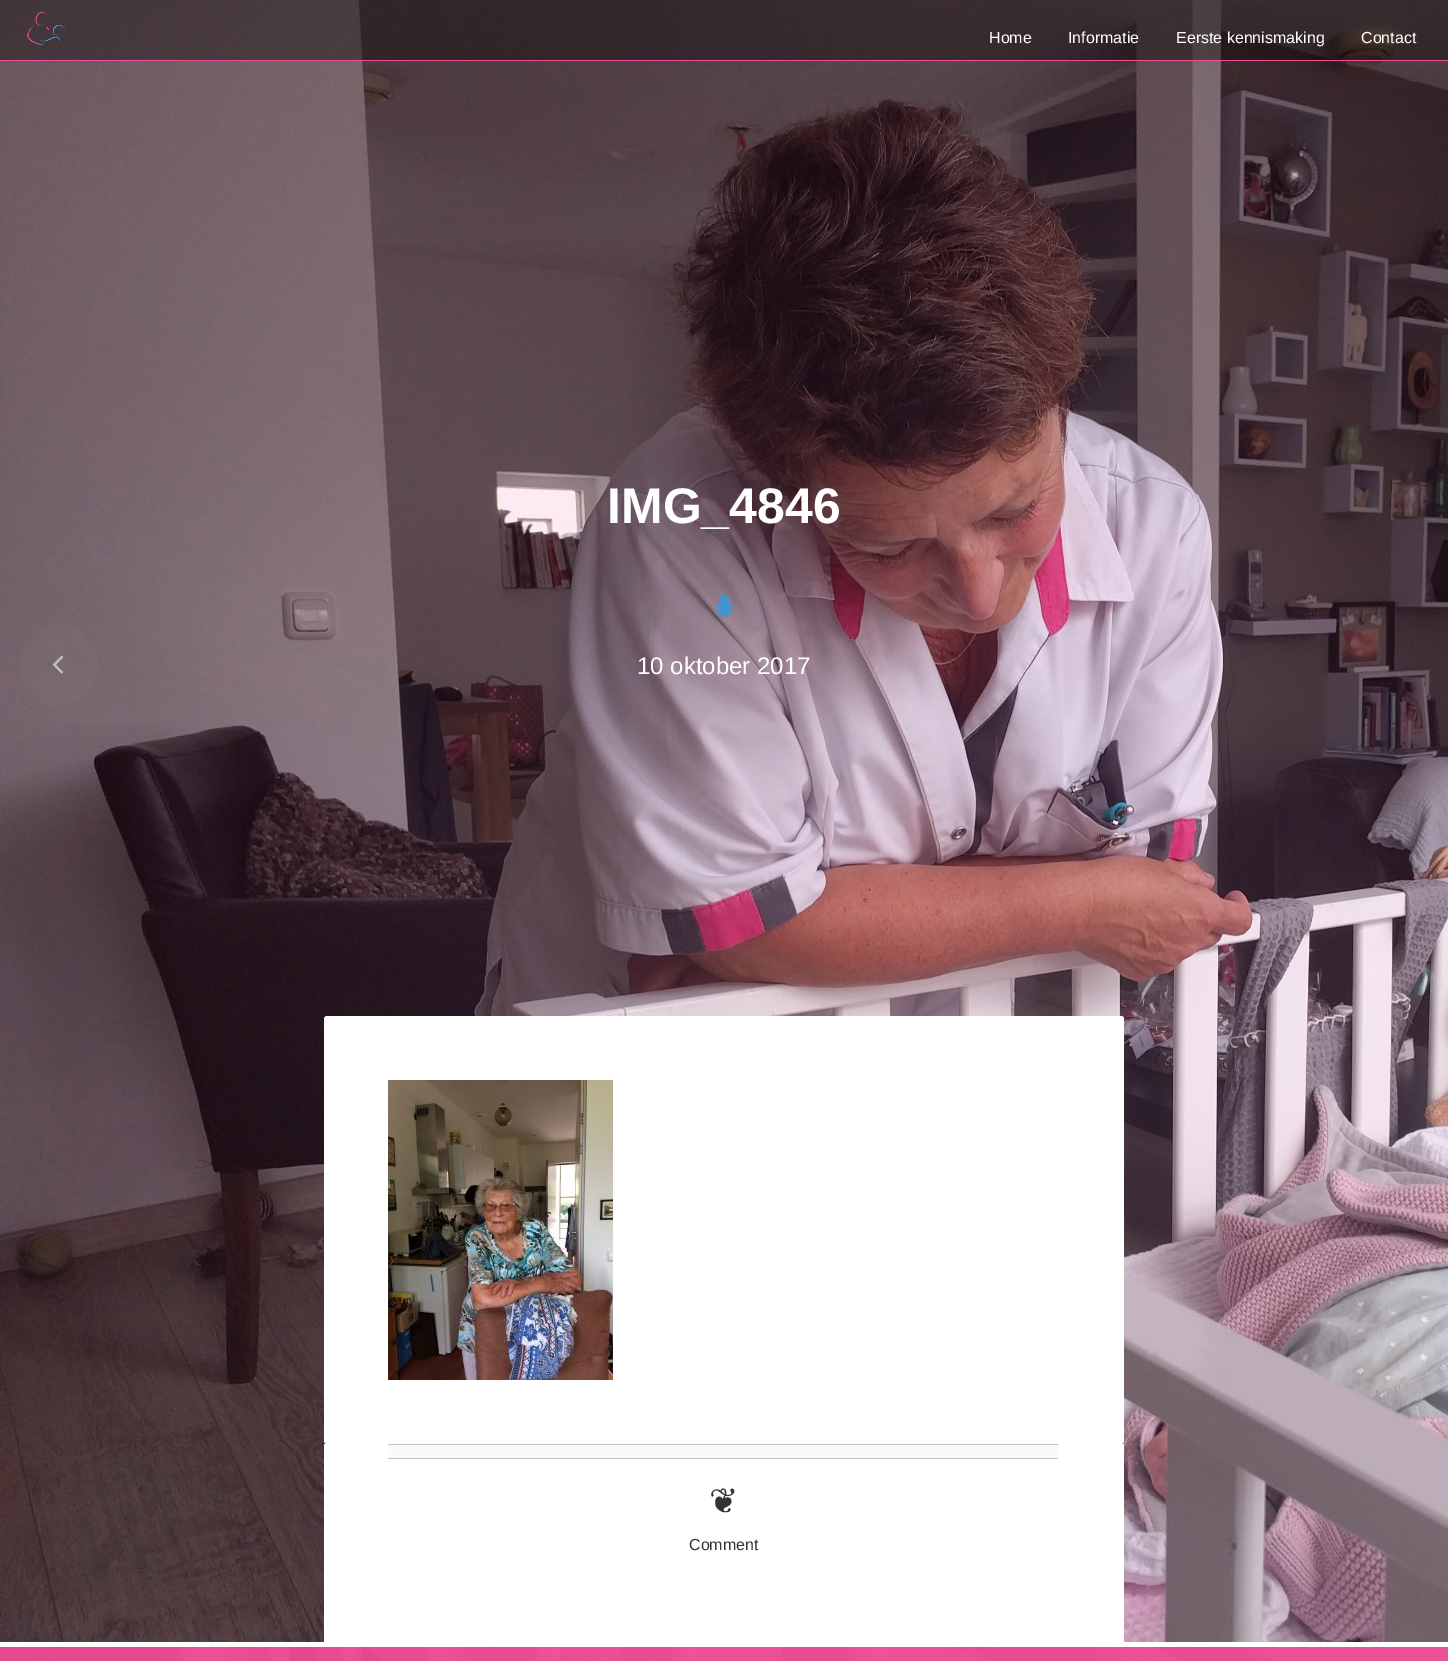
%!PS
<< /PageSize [1448 1661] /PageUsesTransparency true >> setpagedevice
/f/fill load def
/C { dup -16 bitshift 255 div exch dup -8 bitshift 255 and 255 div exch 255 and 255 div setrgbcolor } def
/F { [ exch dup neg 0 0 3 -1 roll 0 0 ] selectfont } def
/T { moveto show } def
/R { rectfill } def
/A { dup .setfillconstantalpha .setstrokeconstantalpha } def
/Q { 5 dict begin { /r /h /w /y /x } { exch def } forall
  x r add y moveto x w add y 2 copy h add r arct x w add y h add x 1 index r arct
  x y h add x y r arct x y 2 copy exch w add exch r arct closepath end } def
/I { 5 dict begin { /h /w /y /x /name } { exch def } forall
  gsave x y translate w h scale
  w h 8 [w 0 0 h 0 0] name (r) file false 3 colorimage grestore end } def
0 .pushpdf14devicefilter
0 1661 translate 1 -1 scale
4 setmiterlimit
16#FFFFFF C
0 0 1448 1661 R
(2.rgb) 0 0 1448 1642 I
0.38 A
16#000000 C
0 0 1448 60 R
1 A
16#EE4C95 C
0 60 1448 1 R
(1.rgb) 27 11 38 34 I
/LiberationSans-Regular 16 F
16#FFFFFF C
(Home) 989 43 T
(Informatie) 1068 43 T
(Eerste kennismaking) 1176 43 T
(Contact) 1361 43 T
0.1 A
16#828282 C
20 625 78 80 39 Q f
1 A
(3.rgb) 52 655 12 19 I
/LiberationSans-Bold 50 F
16#FFFFFF C
(IMG_4846) 607 523 T
(4.rgb) 714 593 20 25 I
/LiberationSans-Regular 24 F
(10 oktober 2017) 637 674 T
324 1016 800 428 3 Q f
(5.rgb) 388 1080 225 300 I
324 1444 800 198 R
16#FAFAFA C
388 1445 670 13 R
16#C0C0C0 C
388 1444 670 1 R
388 1458 670 1 R
/DejaVuSans-Regular 35 F
16#333333 C
(❦) 709 1513 T
/LiberationSans-Regular 16 F
(Comment) 689 1550 T
(6.rgb) 0 1647 1448 14 I
0.94 A
16#EE4C95 C
0 1647 1448 14 R
.poppdf14devicefilter showpage
